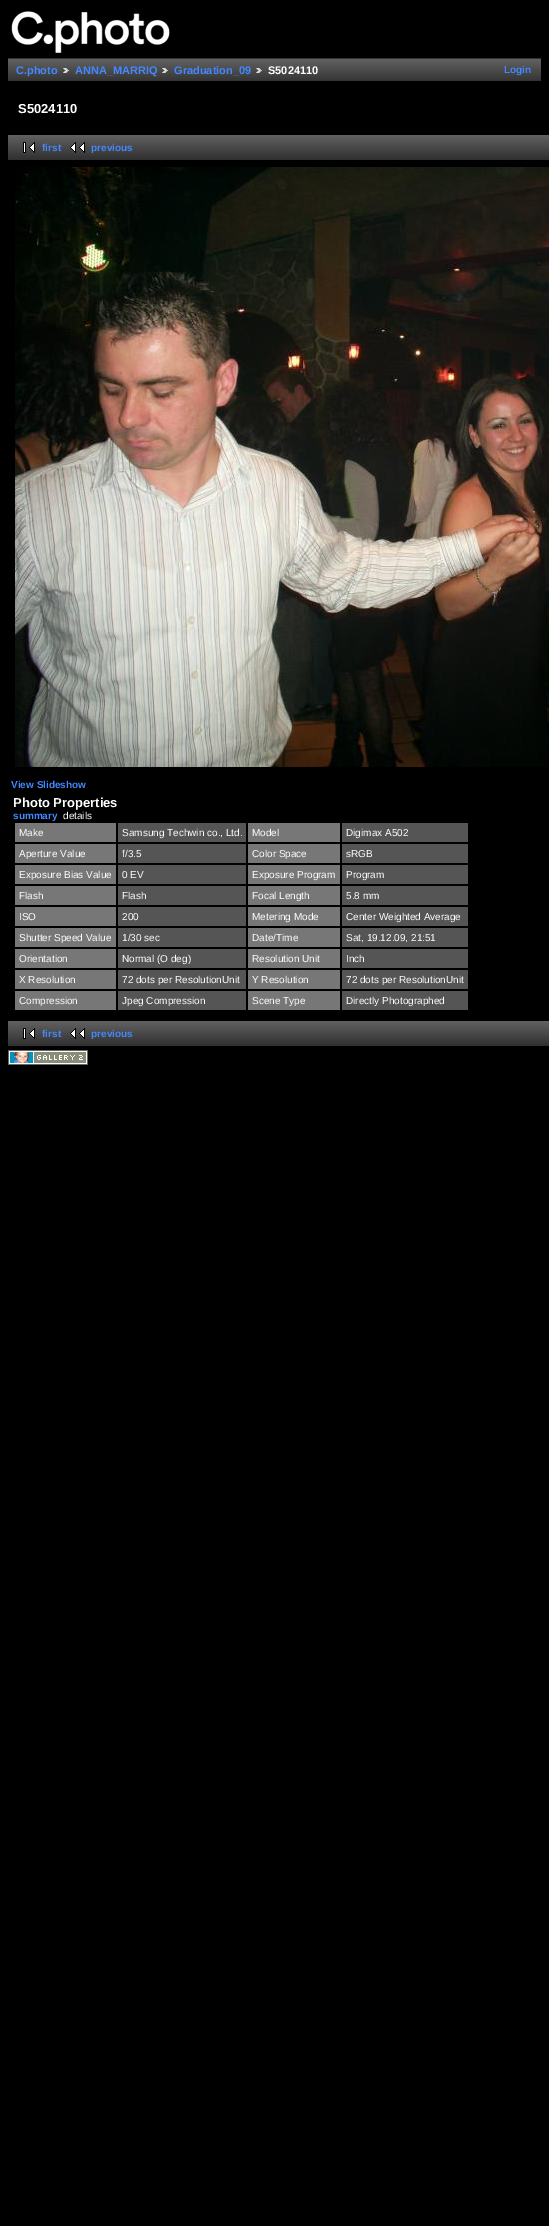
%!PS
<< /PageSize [549 2226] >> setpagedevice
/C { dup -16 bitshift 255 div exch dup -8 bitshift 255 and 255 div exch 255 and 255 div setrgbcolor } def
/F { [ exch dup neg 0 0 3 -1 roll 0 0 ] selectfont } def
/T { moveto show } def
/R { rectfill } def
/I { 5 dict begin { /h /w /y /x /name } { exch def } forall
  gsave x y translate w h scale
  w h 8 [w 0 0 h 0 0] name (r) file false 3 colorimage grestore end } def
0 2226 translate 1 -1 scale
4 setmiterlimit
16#000000 C
0 0 549 2226 R
(1.rgb) 11 11 159 42 I
(2.rgb) 8 59 533 21 I
16#333333 C
8 58 533 1 R
8 80 533 1 R
/LiberationSans-Bold 11 F
16#4488FF C
(C.photo) 16 74 T
(3.rgb) 63 68 6 5 I
(ANNA_MARRIQ) 75 74 T
(3.rgb) 162 68 6 5 I
(Graduation_09) 174 74 T
(3.rgb) 256 68 6 5 I
16#FFFFFF C
(S5024110) 268 74 T
/LiberationSans-Bold 10 F
16#4488FF C
(Login) 504 73 T
/LiberationSans-Bold 13 F
16#FFFFFF C
(S5024110) 18 113 T
(4.rgb) 8 135 541 25 I
(5.rgb) 23 142 12 11 I
/LiberationSans-Bold 10 F
16#4488FF C
(first) 42 151 T
(6.rgb) 70 142 15 11 I
(previous) 91 151 T
(7.rgb) 15 167 534 600 I
(View Slideshow) 11 788 T
/LiberationSans-Bold 13 F
16#FFFFFF C
(Photo Properties) 13 807 T
/LiberationSans-Bold 10 F
16#4488FF C
(summary) 13 819 T
/LiberationSans-Regular 10 F
16#FFFFFF C
(details) 63 819 T
16#777777 C
15 823 101 19 R
16#FFFFFF C
(Make) 19 836 T
16#555555 C
118 823 128 19 R
16#FFFFFF C
(Samsung Techwin co., Ltd.) 122 836 T
16#777777 C
248 823 92 19 R
16#FFFFFF C
(Model) 252 836 T
16#555555 C
342 823 126 19 R
16#FFFFFF C
(Digimax A502) 346 836 T
16#777777 C
15 844 101 19 R
16#FFFFFF C
(Aperture Value) 19 857 T
16#555555 C
118 844 128 19 R
16#FFFFFF C
(f/3.5) 122 857 T
16#777777 C
248 844 92 19 R
16#FFFFFF C
(Color Space) 252 857 T
16#555555 C
342 844 126 19 R
16#FFFFFF C
(sRGB) 346 857 T
16#777777 C
15 865 101 19 R
16#FFFFFF C
(Exposure Bias Value) 19 878 T
16#555555 C
118 865 128 19 R
16#FFFFFF C
(0 EV) 122 878 T
16#777777 C
248 865 92 19 R
16#FFFFFF C
(Exposure Program) 252 878 T
16#555555 C
342 865 126 19 R
16#FFFFFF C
(Program) 346 878 T
16#777777 C
15 886 101 19 R
16#FFFFFF C
(Flash) 19 899 T
16#555555 C
118 886 128 19 R
16#FFFFFF C
(Flash) 122 899 T
16#777777 C
248 886 92 19 R
16#FFFFFF C
(Focal Length) 252 899 T
16#555555 C
342 886 126 19 R
16#FFFFFF C
(5.8 mm) 346 899 T
16#777777 C
15 907 101 19 R
16#FFFFFF C
(ISO) 19 920 T
16#555555 C
118 907 128 19 R
16#FFFFFF C
(200) 122 920 T
16#777777 C
248 907 92 19 R
16#FFFFFF C
(Metering Mode) 252 920 T
16#555555 C
342 907 126 19 R
16#FFFFFF C
(Center Weighted Average) 346 920 T
16#777777 C
15 928 101 19 R
16#FFFFFF C
(Shutter Speed Value) 19 941 T
16#555555 C
118 928 128 19 R
16#FFFFFF C
(1/30 sec) 122 941 T
16#777777 C
248 928 92 19 R
16#FFFFFF C
(Date/Time) 252 941 T
16#555555 C
342 928 126 19 R
16#FFFFFF C
(Sat, 19.12.09, 21:51) 346 941 T
16#777777 C
15 949 101 19 R
16#FFFFFF C
(Orientation) 19 962 T
16#555555 C
118 949 128 19 R
16#FFFFFF C
(Normal \(O deg\)) 122 962 T
16#777777 C
248 949 92 19 R
16#FFFFFF C
(Resolution Unit) 252 962 T
16#555555 C
342 949 126 19 R
16#FFFFFF C
(Inch) 346 962 T
16#777777 C
15 970 101 19 R
16#FFFFFF C
(X Resolution) 19 983 T
16#555555 C
118 970 128 19 R
16#FFFFFF C
(72 dots per ResolutionUnit) 122 983 T
16#777777 C
248 970 92 19 R
16#FFFFFF C
(Y Resolution) 252 983 T
16#555555 C
342 970 126 19 R
16#FFFFFF C
(72 dots per ResolutionUnit) 346 983 T
16#777777 C
15 991 101 19 R
16#FFFFFF C
(Compression) 19 1004 T
16#555555 C
118 991 128 19 R
16#FFFFFF C
(Jpeg Compression) 122 1004 T
16#777777 C
248 991 92 19 R
16#FFFFFF C
(Scene Type) 252 1004 T
16#555555 C
342 991 126 19 R
16#FFFFFF C
(Directly Photographed) 346 1004 T
(4.rgb) 8 1021 541 25 I
(5.rgb) 23 1028 12 11 I
/LiberationSans-Bold 10 F
16#4488FF C
(first) 42 1037 T
(6.rgb) 70 1028 15 11 I
(previous) 91 1037 T
(8.rgb) 8 1050 80 15 I
showpage
